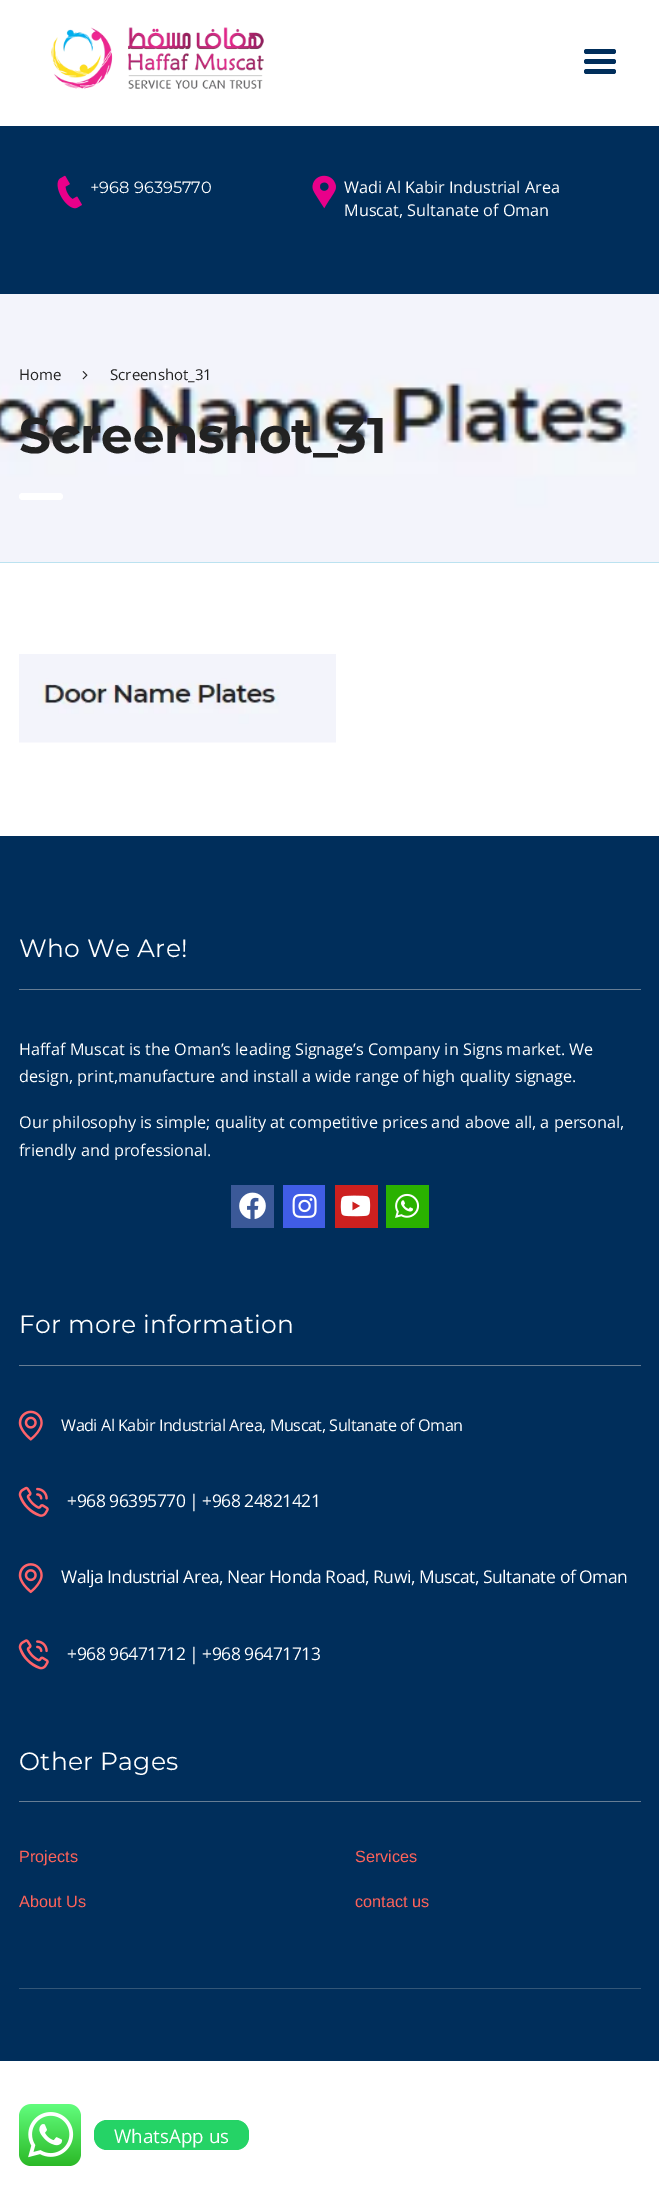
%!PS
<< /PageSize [659 2185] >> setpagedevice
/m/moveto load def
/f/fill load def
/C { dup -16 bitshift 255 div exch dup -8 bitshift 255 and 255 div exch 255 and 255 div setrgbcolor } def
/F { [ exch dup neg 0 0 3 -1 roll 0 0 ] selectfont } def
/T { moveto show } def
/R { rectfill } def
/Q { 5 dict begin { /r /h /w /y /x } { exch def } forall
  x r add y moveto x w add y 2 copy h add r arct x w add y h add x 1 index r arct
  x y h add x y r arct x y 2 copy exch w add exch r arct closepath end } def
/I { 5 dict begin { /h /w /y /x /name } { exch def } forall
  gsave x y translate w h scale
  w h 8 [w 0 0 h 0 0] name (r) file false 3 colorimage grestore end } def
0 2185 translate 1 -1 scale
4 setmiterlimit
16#FFFFFF C
0 0 659 2185 R
(1.rgb) 51 27 213 62 I
16#002E5B C
584 59 32 5 2.5 Q f
584 49 32 5 2.5 Q f
584 69 32 5 2.5 Q f
0 126 659 168 R
(2.rgb) 57 175 25 34 I
/Montserrat-Regular 16.25 F
16#FFFFFF C
(+968 96395770) 90 193 T
(3.rgb) 312 175 24 34 I
/OpenSans-Regular 16.25 F
(Wadi Al Kabir Industrial Area) 344 193 T
(Muscat, Sultanate of Oman) 344 216 T
16#83D0E4 C
0 562 659 1 R
(4.rgb) 0 294 659 269 I
/OpenSans-Regular 15 F
16#222222 C
(Home) 19 380 T
(5.rgb) 82 371 6 9 I
(Screenshot_31) 110 380 T
/Montserrat-Bold 50 F
19 453 m -.25 0 (Screenshot_31) ashow
16#FFFFFF C
19 493 44 7 3.5 Q f
(6.rgb) 19 654 317 89 I
16#002E5B C
0 836 659 1225 R
16#667D94 C
19 989 622 1 R
/Montserrat-Regular 25 F
16#FFFFFF C
19 957 m .25 0 (Who We Are!) ashow
/OpenSans-Regular 16.25 F
(Haffaf Muscat is the Oman’s leading Signage’s Company in Signs market. We) 19 1055 T
(design, print,manufacture and install a wide range of high quality signage.) 19 1082 T
(Our philosophy is simple; quality at competitive prices and above all, a personal,) 19 1128 T
(friendly and professional.) 19 1156 T
16#3B5998 C
231 1185 43 43 R
(7.rgb) 239 1192 27 27 I
16#405DE6 C
283 1185 42 43 R
(8.rgb) 292 1193 25 25 I
16#CD201F C
335 1185 43 43 R
(9.rgb) 340 1195 31 22 I
16#2AB200 C
386 1185 43 43 R
(10.rgb) 395 1193 25 25 I
16#667D94 C
19 1365 622 1 R
/Montserrat-Regular 25 F
16#FFFFFF C
19 1333 m .25 0 (For more information) ashow
(11.rgb) 18 1410 25 31 I
/OpenSans-Regular 16.25 F
61 1431 m -.5 0 (Wadi Al Kabir Industrial Area, Muscat, Sultanate of Oman) ashow
(12.rgb) 18 1486 31 31 I
/OpenSans-Regular 17.5 F
67 1507 m -.5 0 (+968 96395770 | +968 24821421) ashow
(13.rgb) 18 1563 25 31 I
61 1583 m -.5 0 (Walja Industrial Area, Near Honda Road, Ruwi, Muscat, Sultanate of Oman) ashow
(14.rgb) 18 1639 31 31 I
67 1660 m -.5 0 (+968 96471712 | +968 96471713) ashow
16#667D94 C
19 1801 622 1 R
/Montserrat-Regular 25 F
16#FFFFFF C
19 1770 m .25 0 (Other Pages) ashow
/LiberationSans-Regular 16.25 F
16#FF635A C
(Projects) 19 1862 T
(Services) 355 1862 T
(About Us) 19 1907 T
(contact us) 355 1907 T
16#335677 C
19 1988 622 1 R
(15.rgb) 19 2104 62 62 I
16#25D366 C
94 2120 155 30 13 Q f
/OpenSans-Regular 18.75 F
16#FFFFFF C
(WhatsApp us) 114 2143 T
showpage
